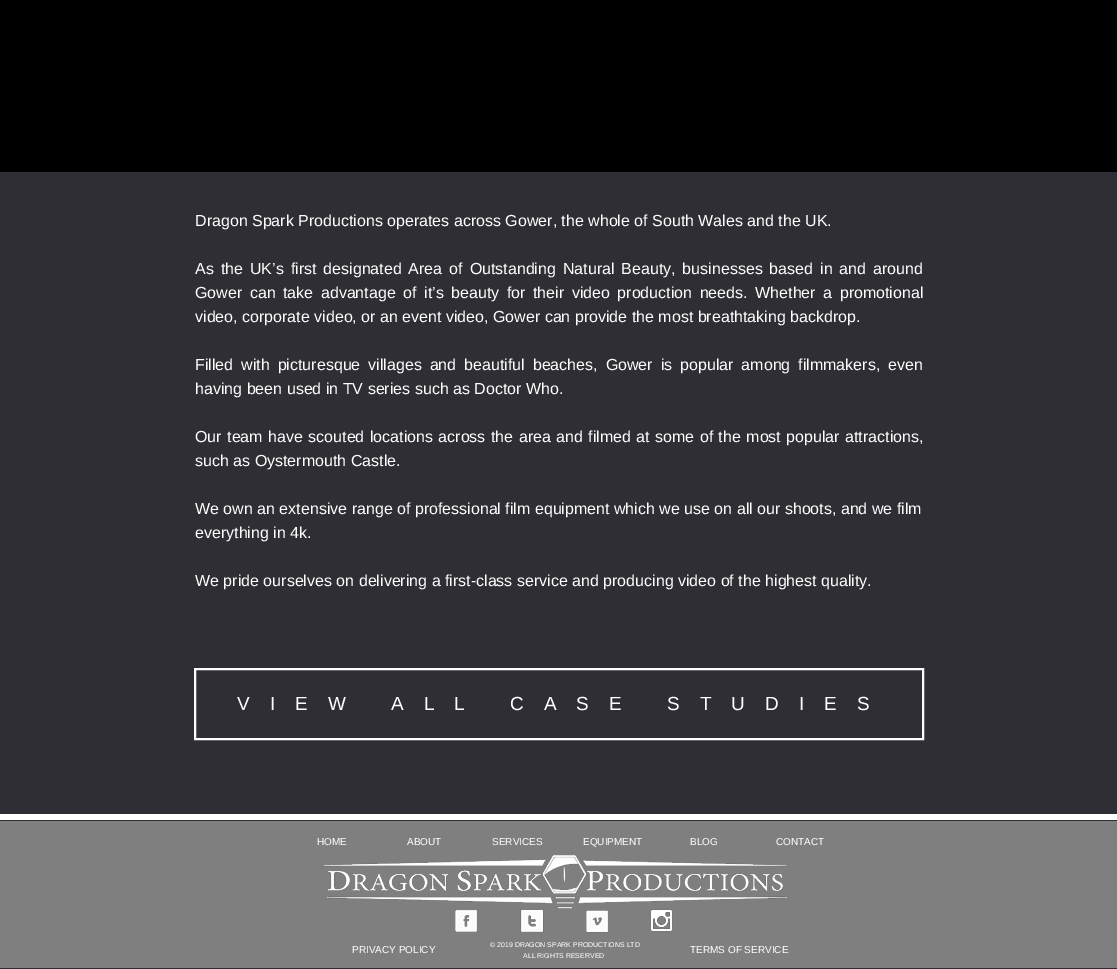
%!PS
<< /PageSize [1117 969] >> setpagedevice
/m/moveto load def
/w/setlinewidth load def
/C { dup -16 bitshift 255 div exch dup -8 bitshift 255 and 255 div exch 255 and 255 div setrgbcolor } def
/F { [ exch dup neg 0 0 3 -1 roll 0 0 ] selectfont } def
/T { moveto show } def
/R { rectfill } def
/I { 5 dict begin { /h /w /y /x /name } { exch def } forall
  gsave x y translate w h scale
  w h 8 [w 0 0 h 0 0] name (r) file false 3 colorimage grestore end } def
0 969 translate 1 -1 scale
4 setmiterlimit
16#2E2E34 C
0 0 1117 969 R
16#000000 C
0 0 1117 172 R
/LiberationSans-Regular 16 F
16#FFFFFF C
(Dragon Spark Productions operates across Gower, the whole of South Wales and the UK.) 195 226 T
195 274 m 2.5 0 32 (As the UK’s first designated Area of Outstanding Natural Beauty, businesses based in and around) widthshow
195 298 m 3.1 0 32 (Gower can take advantage of it’s beauty for their video production needs. Whether a promotional) widthshow
(video, corporate video, or an event video, Gower can provide the most breathtaking backdrop.) 195 322 T
195 370 m 3.5 0 32 (Filled with picturesque villages and beautiful beaches, Gower is popular among filmmakers, even) widthshow
(having been used in TV series such as Doctor Who.) 195 394 T
195 442 m 1 0 32 (Our team have scouted locations across the area and filmed at some of the most popular attractions,) widthshow
(such as Oystermouth Castle.) 195 466 T
(We own an extensive range of professional film equipment which we use on all our shoots, and we film) 195 514 T
(everything in 4k.) 195 538 T
(We pride ourselves on delivering a first-class service and producing video of the highest quality.) 195 586 T
2 w
195 669 728 70 rectstroke
/LiberationSans-Regular 19 F
237 710 m 20 0 (VIEW ALL CASE STUDIES) ashow
0 814 1117 6 R
16#7F7F7F C
0 821 1117 147 R
/LiberationSans-Regular 10 F
16#FFFFFF C
(HOME) 317 845 T
(ABOUT) 407 845 T
(SERVICES) 492 845 T
(EQUIPMENT) 583 845 T
(BLOG) 690 845 T
(CONTACT) 776 845 T
(1.rgb) 324 855 463 54 I
(2.rgb) 455 909 22 23 I
(3.rgb) 520 909 24 24 I
(4.rgb) 586 910 22 23 I
(5.rgb) 650 909 23 23 I
(PRIVACY POLICY) 352 953 T
/LiberationSans-Regular 7 F
(© 2019 DRAGON SPARK PRODUCTIONS LTD) 490 947 T
(ALL RIGHTS RESERVED) 523 958 T
/LiberationSans-Regular 10 F
(TERMS OF SERVICE) 690 953 T
showpage
